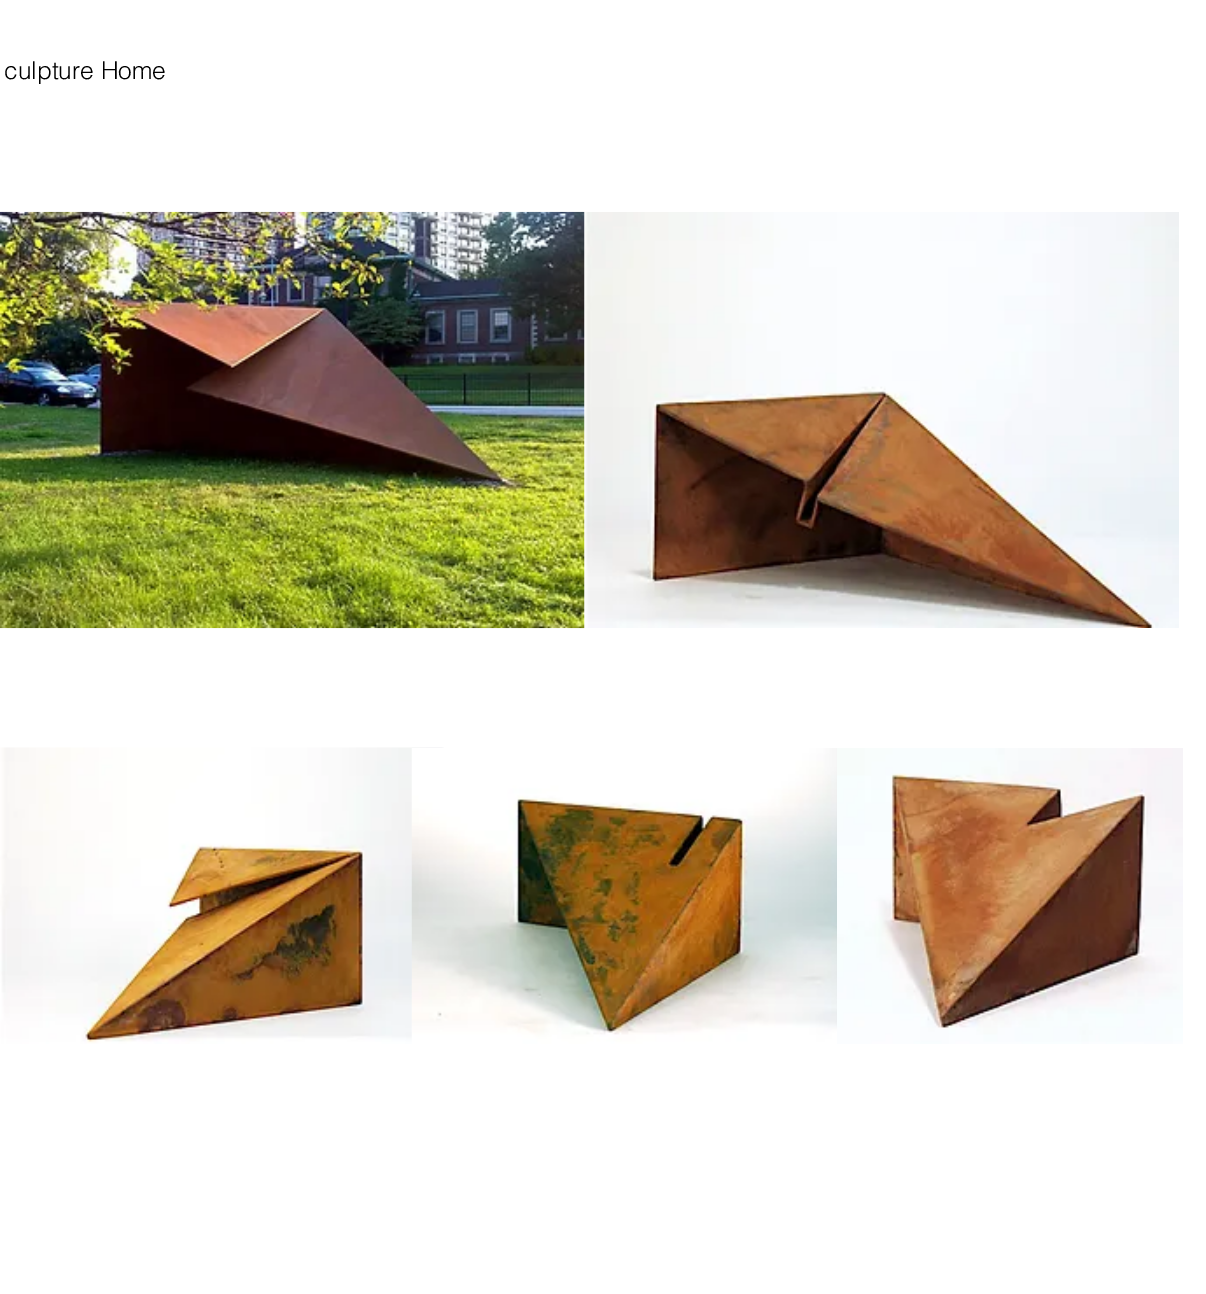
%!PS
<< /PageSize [1206 1294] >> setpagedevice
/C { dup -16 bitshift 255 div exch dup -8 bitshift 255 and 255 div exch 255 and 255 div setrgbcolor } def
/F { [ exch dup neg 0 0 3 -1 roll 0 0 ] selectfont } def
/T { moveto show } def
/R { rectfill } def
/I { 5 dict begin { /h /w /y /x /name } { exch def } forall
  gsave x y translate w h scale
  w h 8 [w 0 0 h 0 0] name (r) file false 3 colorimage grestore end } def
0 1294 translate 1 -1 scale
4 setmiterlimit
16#FFFFFF C
0 0 1206 1294 R
/helvetica-Light 24.5 F
16#000000 C
(culpture Home) 4 79 T
(1.rgb) 0 211 585 418 I
(2.rgb) 585 212 594 416 I
(3.rgb) 0 747 444 297 I
(4.rgb) 411 748 426 296 I
(5.rgb) 837 748 346 296 I
showpage
